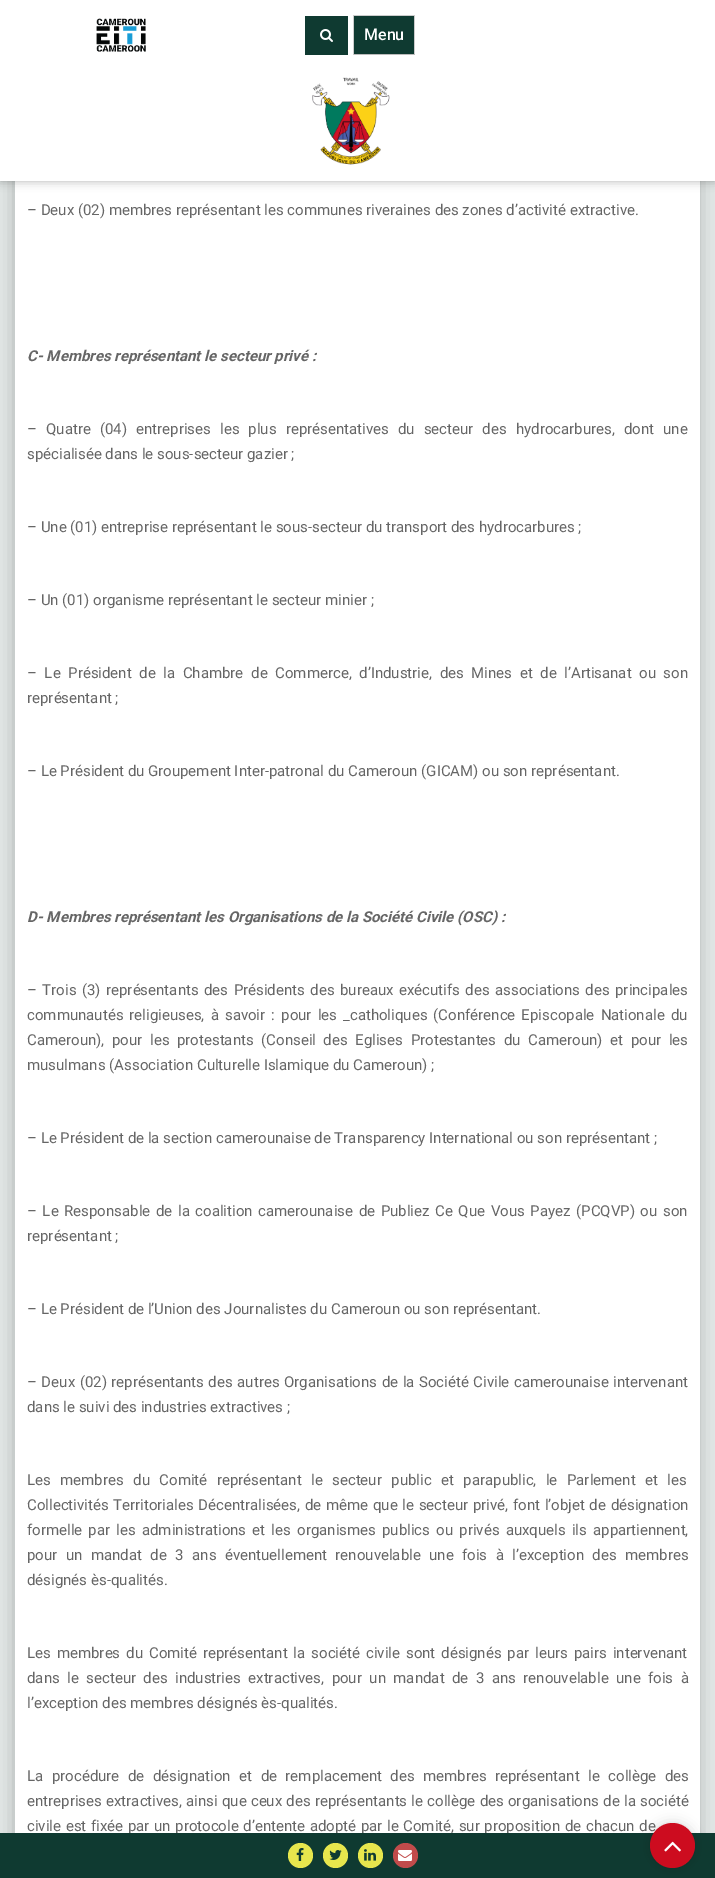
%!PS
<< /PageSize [715 1878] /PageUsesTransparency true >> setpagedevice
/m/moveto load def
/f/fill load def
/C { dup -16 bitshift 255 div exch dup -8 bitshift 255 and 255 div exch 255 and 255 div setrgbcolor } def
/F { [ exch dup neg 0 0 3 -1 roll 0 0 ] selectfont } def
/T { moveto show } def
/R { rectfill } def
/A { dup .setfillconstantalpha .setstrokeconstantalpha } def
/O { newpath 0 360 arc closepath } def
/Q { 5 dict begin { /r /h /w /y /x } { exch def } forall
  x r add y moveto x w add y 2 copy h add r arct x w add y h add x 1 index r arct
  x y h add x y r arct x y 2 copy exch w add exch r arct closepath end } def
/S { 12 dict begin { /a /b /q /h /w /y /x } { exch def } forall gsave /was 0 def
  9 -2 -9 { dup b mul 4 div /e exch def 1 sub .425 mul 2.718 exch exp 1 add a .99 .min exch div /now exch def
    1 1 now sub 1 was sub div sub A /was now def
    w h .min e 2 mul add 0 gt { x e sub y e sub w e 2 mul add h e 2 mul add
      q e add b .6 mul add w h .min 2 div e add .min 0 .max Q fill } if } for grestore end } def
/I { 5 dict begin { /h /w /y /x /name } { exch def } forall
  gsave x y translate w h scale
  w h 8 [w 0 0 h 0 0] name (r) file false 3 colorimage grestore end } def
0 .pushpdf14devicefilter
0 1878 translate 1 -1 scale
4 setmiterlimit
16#E3E8E7 C
0 0 715 1878 R
16#000000 C
14 -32 685 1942 5 9 .23 S
16#FFFFFF C
15 181 685 1652 R
16#000000 C
0 0 715 181 0 5 .3 S
16#FFFFFF C
0 0 715 181 R
(1.rgb) 96 18 50 34 I
16#0F3A31 C
305 16 43 39 R
(2.rgb) 320 29 13 13 I
354 16 60 38 R
16#CCCCCC C
353 15 62 1 R
414 15 1 40 R
16#BBBBBB C
353 54 62 1 R
16#CCCCCC C
353 15 1 40 R
/Roboto-Medium 16 F
16#FFFFFF C
(Menu) 364 40 T
(3.rgb) 312 77 78 88 I
/Roboto-Regular 15 F
16#666666 C
27 1831 m .9 0 32 (civile est fixée par un protocole d’entente adopté par le Comité, sur proposition de chacun de) widthshow
16#0F3A31 C
0 1833 715 45 R
16#E7E64D C
300.5 1855.5 12.5 O f
(4.rgb) 296 1848 8 13 I
335.5 1855.5 12.5 O f
(5.rgb) 329 1850 13 10 I
370.5 1855.5 12.5 O f
(6.rgb) 364 1849 12 12 I
16#C14B4B C
405.5 1855.5 12.5 O f
(7.rgb) 398 1850 14 11 I
16#666666 C
(– Deux \(02\) membres représentant les communes riveraines des zones d’activité extractive.) 27 215 T
/Roboto-BoldItalic 15 F
(C- Membres représentant le secteur privé :) 27 361 T
/Roboto-Regular 15 F
27 434 m 5.4 0 32 (– Quatre \(04\) entreprises les plus représentatives du secteur des hydrocarbures, dont une) widthshow
(spécialisée dans le sous-secteur gazier ;) 27 459 T
(– Une \(01\) entreprise représentant le sous-secteur du transport des hydrocarbures ;) 27 532 T
(– Un \(01\) organisme représentant le secteur minier ;) 27 605 T
27 678 m 3.9 0 32 (– Le Président de la Chambre de Commerce, d’Industrie, des Mines et de l’Artisanat ou son) widthshow
(représentant ;) 27 703 T
(– Le Président du Groupement Inter-patronal du Cameroun \(GICAM\) ou son représentant.) 27 776 T
/Roboto-BoldItalic 15 F
(D- Membres représentant les Organisations de la Société Civile \(OSC\) :) 27 922 T
/Roboto-Regular 15 F
27 995 m 1.75 0 32 (– Trois \(3\) représentants des Présidents des bureaux exécutifs des associations des principales) widthshow
27 1020 m 2.4 0 32 (communautés religieuses, à savoir : pour les _catholiques \(Conférence Episcopale Nationale du) widthshow
27 1045 m 3.9 0 32 (Cameroun\), pour les protestants \(Conseil des Eglises Protestantes du Cameroun\) et pour les) widthshow
(musulmans \(Association Culturelle Islamique du Cameroun\) ;) 27 1070 T
(– Le Président de la section camerounaise de Transparency International ou son représentant ;) 27 1143 T
27 1216 m 1.9 0 32 (– Le Responsable de la coalition camerounaise de Publiez Ce Que Vous Payez \(PCQVP\) ou son) widthshow
(représentant ;) 27 1241 T
(– Le Président de l’Union des Journalistes du Cameroun ou son représentant.) 27 1314 T
27 1387 m .9 0 32 (– Deux \(02\) représentants des autres Organisations de la Société Civile camerounaise intervenant) widthshow
(dans le suivi des industries extractives ;) 27 1412 T
27 1485 m 5.75 0 32 (Les membres du Comité représentant le secteur public et parapublic, le Parlement et les) widthshow
27 1510 m 1 0 32 (Collectivités Territoriales Décentralisées, de même que le secteur privé, font l’objet de désignation) widthshow
27 1535 m 2.5 0 32 (formelle par les administrations et les organismes publics ou privés auxquels ils appartiennent,) widthshow
27 1560 m 4.75 0 32 (pour un mandat de 3 ans éventuellement renouvelable une fois à l’exception des membres) widthshow
(désignés ès-qualités.) 27 1585 T
27 1658 m 2.25 0 32 (Les membres du Comité représentant la société civile sont désignés par leurs pairs intervenant) widthshow
27 1683 m 3.75 0 32 (dans le secteur des industries extractives, pour un mandat de 3 ans renouvelable une fois à) widthshow
(l’exception des membres désignés ès-qualités.) 27 1708 T
27 1781 m 4.75 0 32 (La procédure de désignation et de remplacement des membres représentant le collège des) widthshow
27 1806 m .5 0 32 (entreprises extractives, ainsi que ceux des représentants le collège des organisations de la société) widthshow
16#000000 C
650 1823 45 45 22.5 6 .16 S
16#CD0C1F C
672.5 1845.5 22.5 O f
(8.rgb) 664 1841 17 11 I
.poppdf14devicefilter showpage
